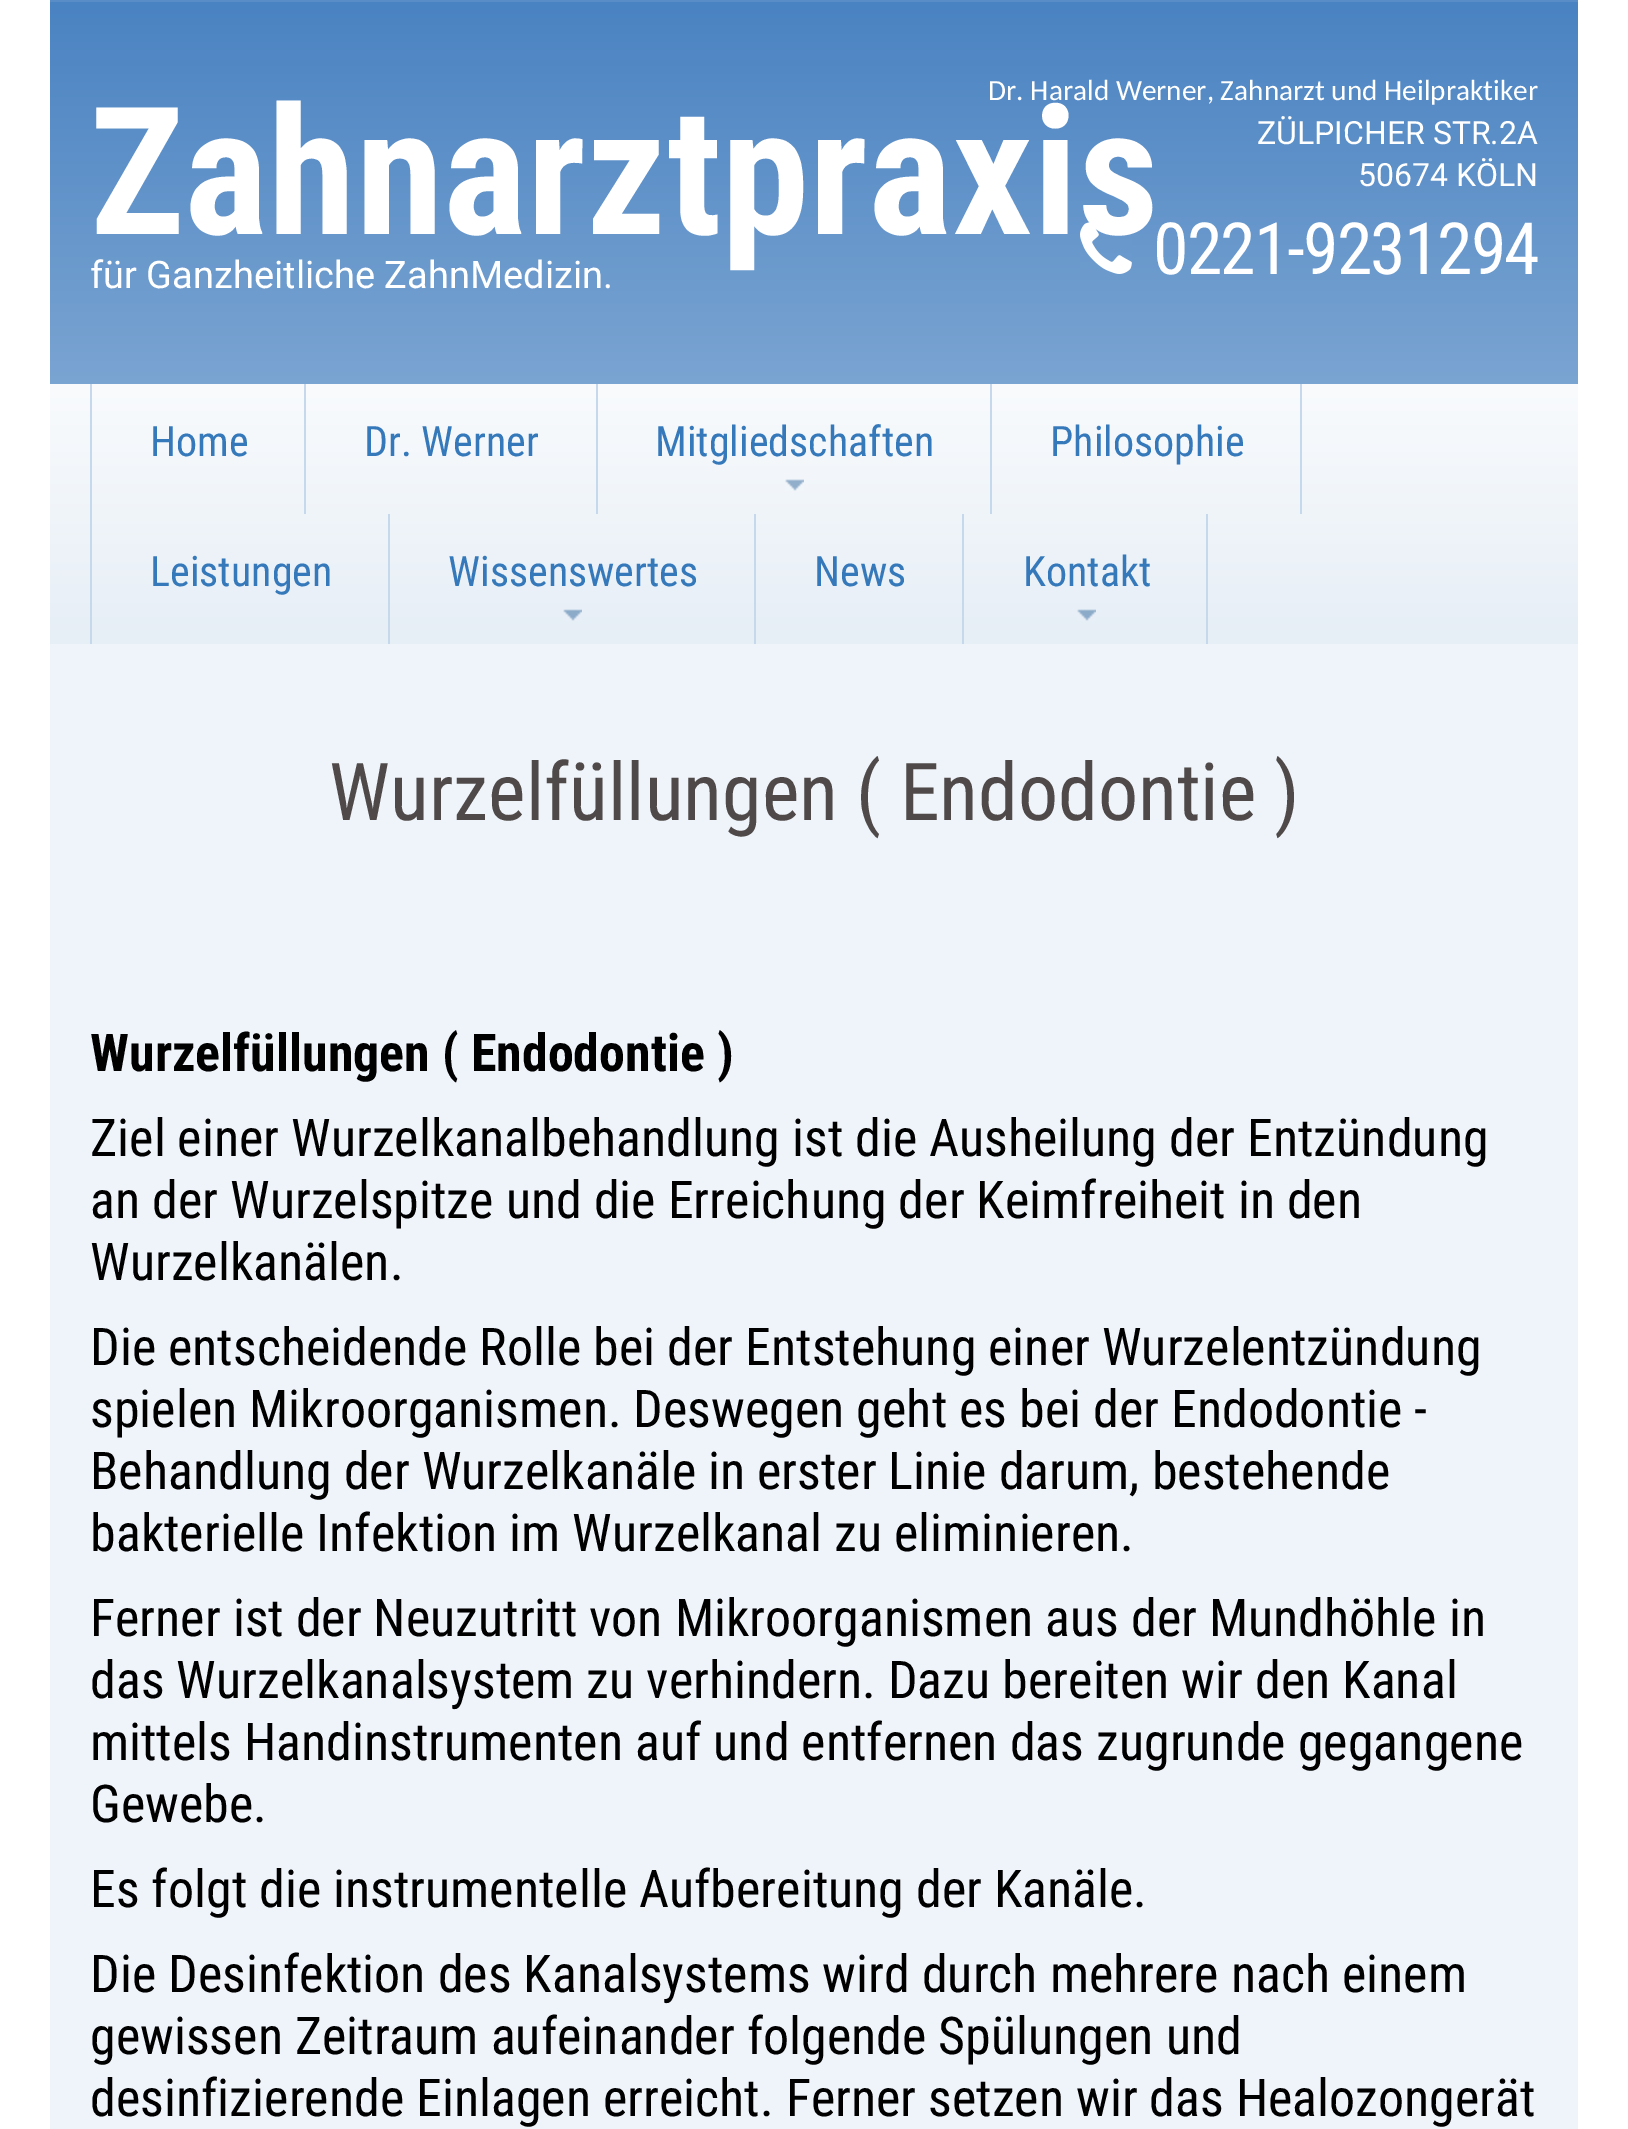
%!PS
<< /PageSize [1628 2129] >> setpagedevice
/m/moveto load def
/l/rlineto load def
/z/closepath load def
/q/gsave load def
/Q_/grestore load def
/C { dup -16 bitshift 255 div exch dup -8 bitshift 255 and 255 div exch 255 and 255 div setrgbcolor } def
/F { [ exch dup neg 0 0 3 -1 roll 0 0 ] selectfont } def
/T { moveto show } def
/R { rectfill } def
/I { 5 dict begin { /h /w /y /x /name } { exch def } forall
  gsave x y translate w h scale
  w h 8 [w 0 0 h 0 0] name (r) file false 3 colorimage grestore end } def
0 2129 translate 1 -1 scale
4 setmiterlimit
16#FFFFFF C
0 0 1628 2129 R
16#588DC7 C
50 0 1528 2 R
q 100 2 m 1428 0 l 0 382 l -1428 0 l z clip newpath
<< /ShadingType 2 /ColorSpace /DeviceRGB /Coords [814 2 814 384] /Extend [true true] /Function << /FunctionType 2 /Domain [0 1] /C0 [.29 .514 .761] /C1 [.478 .643 .824] /N 1 >> >> shfill Q_
q 50 2 m 50 0 l 0 382 l -50 0 l z clip newpath
<< /ShadingType 2 /ColorSpace /DeviceRGB /Coords [45 2 45 384] /Extend [true true] /Function << /FunctionType 2 /Domain [0 1] /C0 [.29 .514 .761] /C1 [.478 .643 .824] /N 1 >> >> shfill Q_
(1.rgb) 1080 222 52 52 I
/RobotoCondensed-Bold 178 F
16#FFFFFF C
(Zahnarztpraxis) 90 234 T
/Roboto-Regular 38 F
(für Ganzheitliche ZahnMedizin.) 90 288 T
q 1528 2 m 50 0 l 0 382 l -50 0 l z clip newpath
<< /ShadingType 2 /ColorSpace /DeviceRGB /Coords [1583 2 1583 384] /Extend [true true] /Function << /FunctionType 2 /Domain [0 1] /C0 [.29 .514 .761] /C1 [.478 .643 .824] /N 1 >> >> shfill Q_
/Carlito-Regular 29.3 F
(Dr. Harald Werner, Zahnarzt und Heilpraktiker) 988 100 T
/Roboto-Regular 32 F
(ZÜLPICHER STR.2A) 1257 144 T
(50674 KÖLN) 1358 186 T
/RobotoCondensed-Regular 72 F
1153 274 m -2 0 (0221-9231294) ashow
q 100 384 m 1428 0 l 0 260 l -1428 0 l z clip newpath
<< /ShadingType 2 /ColorSpace /DeviceRGB /Coords [814 384 814 644] /Extend [true true] /Function << /FunctionType 2 /Domain [0 1] /C0 [.976 .984 .992] /C1 [.902 .933 .965] /N 1 >> >> shfill Q_
q 50 384 m 50 0 l 0 260 l -50 0 l z clip newpath
<< /ShadingType 2 /ColorSpace /DeviceRGB /Coords [45 384 45 644] /Extend [true true] /Function << /FunctionType 2 /Domain [0 1] /C0 [.976 .984 .992] /C1 [.902 .933 .965] /N 1 >> >> shfill Q_
16#C6D9EC C
90 384 2 260 R
304 384 2 130 R
/RobotoCondensed-Regular 42 F
16#3679BB C
(Home) 150 456 T
16#C6D9EC C
596 384 2 130 R
16#3679BB C
(Dr. Werner) 364 456 T
16#C6D9EC C
990 384 2 130 R
16#3679BB C
(Mitgliedschaften) 655 456 T
(2.rgb) 785 479 19 12 I
16#C6D9EC C
1300 384 2 130 R
16#3679BB C
(Philosophie) 1050 456 T
16#C6D9EC C
388 514 2 130 R
16#3679BB C
(Leistungen) 150 586 T
16#C6D9EC C
754 514 2 130 R
16#3679BB C
(Wissenswertes) 448 586 T
(3.rgb) 563 609 19 12 I
16#C6D9EC C
962 514 2 130 R
16#3679BB C
(News) 814 586 T
16#C6D9EC C
1206 514 2 130 R
16#3679BB C
(Kontakt) 1023 586 T
(3.rgb) 1077 609 19 12 I
q 1528 384 m 50 0 l 0 260 l -50 0 l z clip newpath
<< /ShadingType 2 /ColorSpace /DeviceRGB /Coords [1583 384 1583 644] /Extend [true true] /Function << /FunctionType 2 /Domain [0 1] /C0 [.976 .984 .992] /C1 [.902 .933 .965] /N 1 >> >> shfill Q_
16#EFF4FA C
50 644 1528 1485 R
/RobotoCondensed-Regular 80 F
16#4F4949 C
(Wurzelfüllungen \( Endodontie \)) 329 820 T
/RobotoCondensed-Bold 52 F
16#000000 C
(Wurzelfüllungen \( Endodontie \)) 90 1071 T
/RobotoCondensed-Regular 52 F
(Ziel einer Wurzelkanalbehandlung ist die Ausheilung der Entzündung) 90 1156 T
(an der Wurzelspitze und die Erreichung der Keimfreiheit in den) 90 1218 T
(Wurzelkanälen.) 90 1280 T
(Die entscheidende Rolle bei der Entstehung einer Wurzelentzündung) 90 1365 T
(spielen Mikroorganismen. Deswegen geht es bei der Endodontie -) 90 1427 T
(Behandlung der Wurzelkanäle in erster Linie darum, bestehende) 90 1489 T
(bakterielle Infektion im Wurzelkanal zu eliminieren.) 90 1551 T
(Ferner ist der Neuzutritt von Mikroorganismen aus der Mundhöhle in) 90 1636 T
(das Wurzelkanalsystem zu verhindern. Dazu bereiten wir den Kanal) 90 1698 T
(mittels Handinstrumenten auf und entfernen das zugrunde gegangene) 90 1760 T
(Gewebe.) 90 1822 T
(Es folgt die instrumentelle Aufbereitung der Kanäle.) 90 1907 T
(Die Desinfektion des Kanalsystems wird durch mehrere nach einem) 90 1992 T
(gewissen Zeitraum aufeinander folgende Spülungen und) 90 2054 T
(desinfizierende Einlagen erreicht. Ferner setzen wir das Healozongerät) 90 2116 T
showpage
